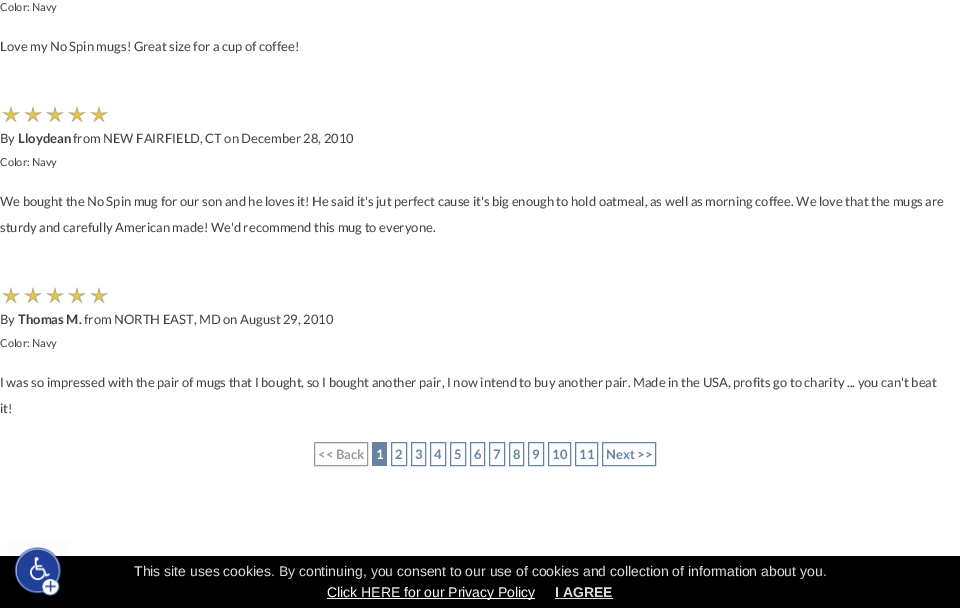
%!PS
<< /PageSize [960 608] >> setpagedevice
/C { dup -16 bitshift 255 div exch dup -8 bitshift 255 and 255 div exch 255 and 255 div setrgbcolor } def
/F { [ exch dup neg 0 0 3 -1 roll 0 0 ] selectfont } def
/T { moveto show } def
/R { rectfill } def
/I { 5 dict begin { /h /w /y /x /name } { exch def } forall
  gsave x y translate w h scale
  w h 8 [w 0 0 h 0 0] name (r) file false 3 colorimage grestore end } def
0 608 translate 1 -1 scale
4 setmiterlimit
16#FFFFFF C
0 0 960 608 R
16#FCFCFF C
7 541 62 15 R
/Lato-Regular 11 F
16#404040 C
(Color: Navy) 0 11 T
/Lato-Regular 13 F
(Love my No Spin mugs! Great size for a cup of coffee!) 0 51 T
(1.rgb) 2 106 106 17 I
(By) 0 143 T
/Lato-Bold 13 F
(Lloydean) 18 143 T
/Lato-Regular 13 F
(from NEW FAIRFIELD, CT on December 28, 2010) 73 143 T
/Lato-Regular 11 F
(Color: Navy) 0 166 T
/Lato-Regular 13 F
(We bought the No Spin mug for our son and he loves it! He said it's jut perfect cause it's big enough to hold oatmeal, as well as morning coffee. We love that the mugs are) 0 206 T
(sturdy and carefully American made! We'd recommend this mug to everyone.) 0 232 T
(1.rgb) 2 287 106 17 I
(By) 0 324 T
/Lato-Bold 13 F
(Thomas M.) 18 324 T
/Lato-Regular 13 F
(from NORTH EAST, MD on August 29, 2010) 84 324 T
/Lato-Regular 11 F
(Color: Navy) 0 347 T
/Lato-Regular 13 F
(I was so impressed with the pair of mugs that I bought, so I bought another pair, I now intend to buy another pair. Made in the USA, profits go to charity ... you can't beat) 0 387 T
(it!) 0 413 T
16#999999 C
314.5 442.5 53 23 rectstroke
/Lato-Bold 13 F
(<< Back) 318 459 T
16#6683A4 C
372 442 15 24 R
16#FFFFFF C
(1) 376 459 T
16#6683A4 C
391.5 442.5 15 23 rectstroke
(2) 395 459 T
411.5 442.5 14 23 rectstroke
(3) 415 459 T
430.5 442.5 15 23 rectstroke
(4) 434 459 T
450.5 442.5 15 23 rectstroke
(5) 454 459 T
470.5 442.5 14 23 rectstroke
(6) 474 459 T
489.5 442.5 15 23 rectstroke
(7) 493 459 T
509.5 442.5 14 23 rectstroke
(8) 513 459 T
528.5 442.5 15 23 rectstroke
(9) 532 459 T
548.5 442.5 22 23 rectstroke
(10) 552 459 T
575.5 442.5 22 23 rectstroke
(11) 579 459 T
602.5 442.5 53 23 rectstroke
(Next >>) 606 459 T
16#000000 C
0 556 960 52 R
(2.rgb) 14 546 48 51 I
/LiberationSans-Regular 14 F
16#DDDDDD C
(This site uses cookies. By continuing, you consent to our use of cookies and collection of information about you.) 134 576 T
16#FFFFFF C
327 598 208 1 R
(Click HERE for our Privacy Policy) 327 597 T
/LiberationSans-Bold 14 F
16#DDDDDD C
(I AGREE) 555 597 T
555 598 58 1 R
showpage
